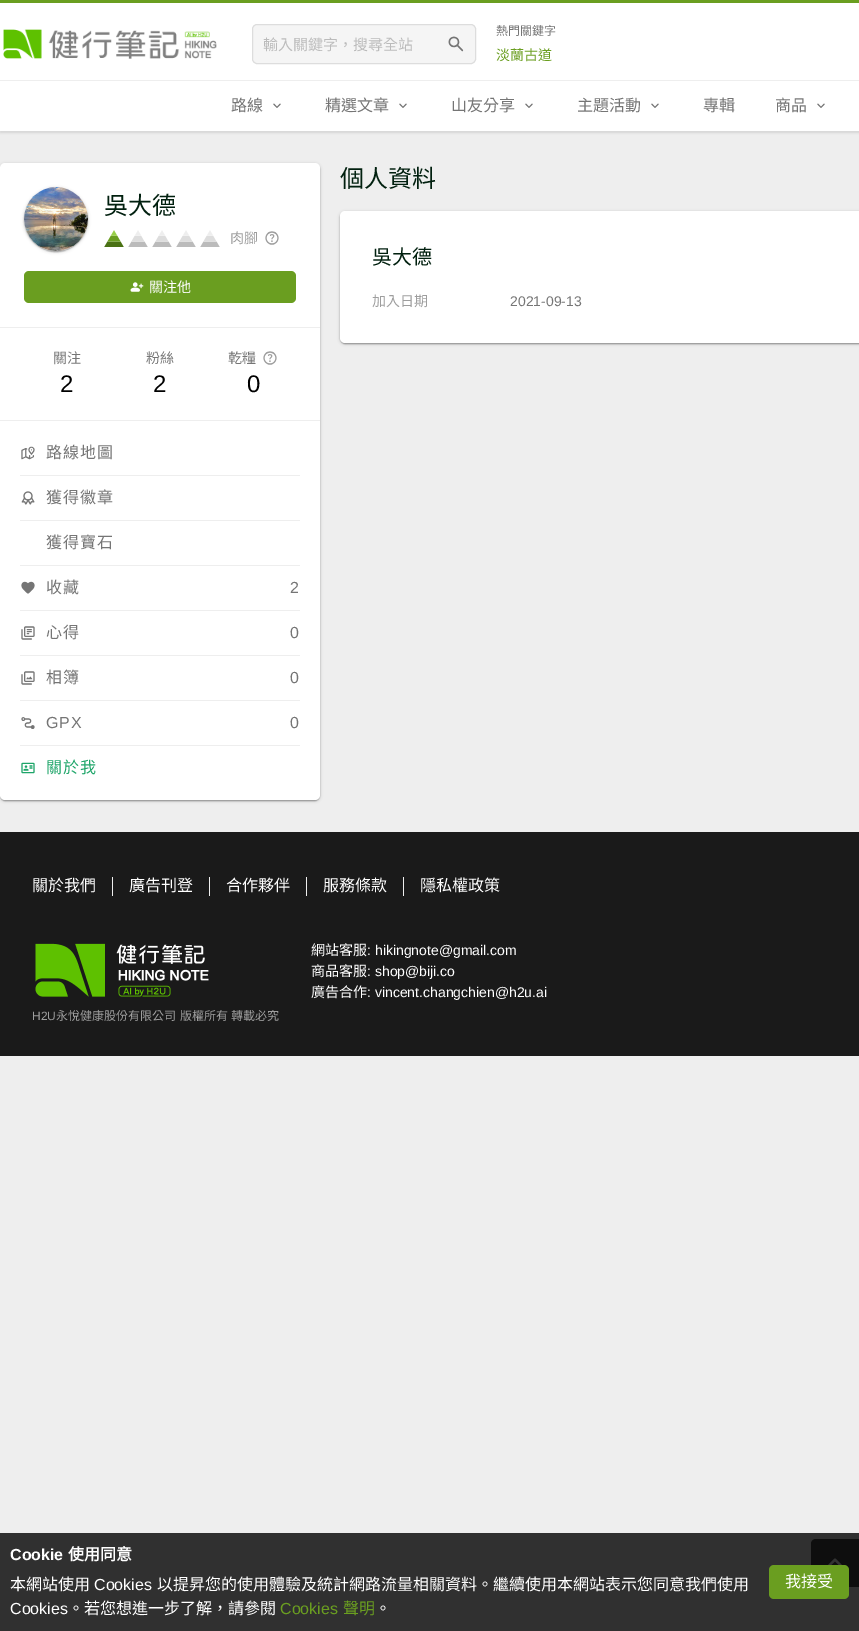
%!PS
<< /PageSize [859 1631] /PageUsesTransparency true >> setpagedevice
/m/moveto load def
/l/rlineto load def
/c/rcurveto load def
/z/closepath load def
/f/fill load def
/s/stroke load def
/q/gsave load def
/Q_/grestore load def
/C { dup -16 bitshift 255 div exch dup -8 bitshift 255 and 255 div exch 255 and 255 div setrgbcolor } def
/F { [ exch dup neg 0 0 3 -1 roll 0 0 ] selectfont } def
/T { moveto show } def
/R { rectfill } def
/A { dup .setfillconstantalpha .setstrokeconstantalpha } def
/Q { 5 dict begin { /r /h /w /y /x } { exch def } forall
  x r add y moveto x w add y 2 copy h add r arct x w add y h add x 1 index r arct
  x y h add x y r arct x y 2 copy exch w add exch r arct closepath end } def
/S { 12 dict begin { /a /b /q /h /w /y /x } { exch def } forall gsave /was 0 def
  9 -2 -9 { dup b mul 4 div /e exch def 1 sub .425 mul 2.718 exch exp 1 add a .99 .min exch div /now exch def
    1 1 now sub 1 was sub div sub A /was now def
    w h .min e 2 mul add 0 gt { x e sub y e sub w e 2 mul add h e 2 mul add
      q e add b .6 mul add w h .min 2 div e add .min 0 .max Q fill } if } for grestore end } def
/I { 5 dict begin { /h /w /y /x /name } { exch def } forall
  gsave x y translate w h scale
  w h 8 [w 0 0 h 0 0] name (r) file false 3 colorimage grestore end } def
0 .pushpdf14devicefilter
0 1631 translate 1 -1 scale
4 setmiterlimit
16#EEEEEE C
0 0 859 1631 R
16#303030 C
0 1533 859 98 R
16#000000 C
0 2 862 131 0 1 .1 S
16#FFFFFF C
0 3 859 128 R
16#6A9E20 C
0 0 859 3 R
(1.rgb) 3 29 214 30 I
16#F5F5F5 C
252.5 24.5 223 39 4.5 Q q f Q_
16#DDDDDD C
s
/NotoSansCJKTC-Regular 15 F
16#BBBBBB C
(輸入關鍵字，搜尋全站) 263 50 T
(2.rgb) 448 36 16 16 I
/NotoSansCJKTC-Regular 12 F
16#757575 C
(熱門關鍵字) 496 35 T
/NotoSansCJKTC-Regular 14 F
16#6A9E20 C
(淡蘭古道) 496 60 T
16#EEEEEE C
0 80 859 1 R
/NotoSansCJKTC-Regular 16 F
16#757575 C
(路線) 231 111 T
(3.rgb) 273 103 8 5 I
(精選文章) 325 111 T
(3.rgb) 399 103 8 5 I
(山友分享) 451 111 T
(3.rgb) 525 103 8 5 I
(主題活動) 577 111 T
(3.rgb) 651 103 8 5 I
(專輯) 703 111 T
(商品) 775 111 T
(3.rgb) 817 103 8 5 I
16#000000 C
0 164 320 637 5 1.5 .2 S
1 166 318 635 4 .5 .12 S
0 164 320 637 5 .5 .14 S
16#FFFFFF C
0 163 320 637 5 Q f
16#000000 C
24 188 64 64 32 1.5 .2 S
25 190 62 62 31 .5 .12 S
24 188 64 64 32 .5 .14 S
(4.rgb) 24 187 64 64 I
/NotoSansCJKTC-Regular 24 F
16#01200F C
(吳大德) 104 214 T
(5.rgb) 104 230 20 17 I
(6.rgb) 128 230 20 17 I
(6.rgb) 152 230 20 17 I
(6.rgb) 176 230 20 17 I
(6.rgb) 200 230 20 17 I
/NotoSansCJKTC-Regular 14 F
16#9E9E9E C
(肉腳) 230 243 T
(7.rgb) 265 231 14 14 I
16#6A9E20 C
24 271 272 32 5 Q f
(8.rgb) 130 282 14 10 I
16#FFFFFF C
(關注他) 149 292 T
16#EEEEEE C
0 327 320 1 R
16#757575 C
(關注) 53 363 T
/LiberationSans-Regular 24 F
16#000000 C
(2) 60 392 T
/NotoSansCJKTC-Regular 14 F
16#757575 C
(粉絲) 146 363 T
/LiberationSans-Regular 24 F
16#000000 C
(2) 153 392 T
/NotoSansCJKTC-Regular 14 F
16#757575 C
(乾糧) 228 363 T
(9.rgb) 263 351 14 14 I
/LiberationSans-Regular 24 F
16#000000 C
(0) 247 392 T
16#EEEEEE C
0 420 320 1 R
(10.rgb) 21 446 14 14 I
/NotoSansCJKTC-Regular 16 F
16#757575 C
46 458 m 1 0 (路線地圖) ashow
16#EEEEEE C
20 475 280 1 R
(11.rgb) 21 491 14 14 I
16#757575 C
46 503 m 1 0 (獲得徽章) ashow
16#EEEEEE C
20 520 280 1 R
16#757575 C
46 548 m 1 0 (獲得寶石) ashow
16#EEEEEE C
20 565 280 1 R
(12.rgb) 21 581 14 13 I
16#757575 C
46 593 m 1 0 (收藏) ashow
/LiberationSans-Regular 16 F
290 593 m 1 0 (2) ashow
16#EEEEEE C
20 610 280 1 R
(13.rgb) 21 626 14 14 I
/NotoSansCJKTC-Regular 16 F
16#757575 C
46 638 m 1 0 (心得) ashow
/LiberationSans-Regular 16 F
290 638 m 1 0 (0) ashow
16#EEEEEE C
20 655 280 1 R
(14.rgb) 21 671 14 14 I
/NotoSansCJKTC-Regular 16 F
16#757575 C
46 683 m 1 0 (相簿) ashow
/LiberationSans-Regular 16 F
290 683 m 1 0 (0) ashow
16#EEEEEE C
20 700 280 1 R
(15.rgb) 21 717 14 12 I
16#757575 C
46 728 m 1 0 (GPX) ashow
290 728 m 1 0 (0) ashow
16#EEEEEE C
20 745 280 1 R
(16.rgb) 21 762 14 12 I
/NotoSansCJKTC-Regular 16 F
16#1EA569 C
46 773 m 1 0 (關於我) ashow
/NotoSansCJKTC-Regular 24 F
16#01200F C
(個人資料) 340 187 T
16#000000 C
340 212 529 132 5 1.5 .2 S
341 214 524 130 4 .5 .12 S
340 212 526 132 5 .5 .14 S
16#FFFFFF C
340 211 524 132 5 Q f
/NotoSansCJKTC-Regular 20 F
16#01200F C
(吳大德) 372 264 T
/NotoSansCJKTC-Regular 14 F
16#9E9E9E C
(加入日期) 372 306 T
/LiberationSans-Regular 14 F
16#757575 C
(2021-09-13) 510 306 T
16#1A1A1A C
0 832 859 224 R
/NotoSansCJKTC-Regular 16 F
16#FFFFFF C
(關於我們) 32 891 T
16#EEEEEE C
112 877 1 19 R
16#FFFFFF C
(廣告刊登) 129 891 T
16#EEEEEE C
209 877 1 19 R
16#FFFFFF C
(合作夥伴) 226 891 T
16#EEEEEE C
306 877 1 19 R
16#FFFFFF C
(服務條款) 323 891 T
16#EEEEEE C
403 877 1 19 R
16#FFFFFF C
(隱私權政策) 420 891 T
/NotoSansCJKTC-Regular 14 F
(網站客服) 311 955 T
/LiberationSans-Regular 14 F
(: hikingnote@gmail.com) 367 955 T
/NotoSansCJKTC-Regular 14 F
(商品客服) 311 976 T
/LiberationSans-Regular 14 F
(: shop@biji.co) 367 976 T
/NotoSansCJKTC-Regular 14 F
(廣告合作) 311 997 T
/LiberationSans-Regular 14 F
(: vincent.changchien@h2u.ai) 367 997 T
(17.rgb) 35 943 174 54 I
/LiberationSans-Regular 12 F
16#9E9E9E C
(H2U) 32 1020 T
/NotoSansCJKTC-Regular 12 F
56 1020 m 1 0 32 (永悅健康股份有限公司 版權所有 轉載必究) widthshow
/LiberationSans-Bold 16 F
16#FFFFFF C
(Cookie) 10 1560 T
/NotoSansCJKTC-Bold 16 F
(使用同意) 68 1560 T
/NotoSansCJKTC-Regular 16 F
(本網站使用) 10 1590 T
/LiberationSans-Regular 16 F
(Cookies) 94 1590 T
/NotoSansCJKTC-Regular 16 F
(以提昇您的使用體驗及統計網路流量相關資料。繼續使用本網站表示您同意我們使用) 157 1590 T
/LiberationSans-Regular 16 F
(Cookies) 10 1614 T
/NotoSansCJKTC-Regular 16 F
(。若您想進一步了解，請參閱) 68 1614 T
/LiberationSans-Regular 16 F
16#6A9E20 C
(Cookies) 280 1614 T
/NotoSansCJKTC-Regular 16 F
(聲明) 343 1614 T
16#FFFFFF C
(。) 375 1614 T
16#0E0E0E C
816 1539 m 43 0 l 0 48 l -43 0 l -3 0 -5 -2 -5 -5 c 0 -38 l 0 -3 2 -5 5 -5 c z f
16#6A9E20 C
769 1565 80 34 5 Q f
16#FFFFFF C
(我接受) 785 1587 T
(18.rgb) 828 1558 14 7 I
.poppdf14devicefilter showpage
